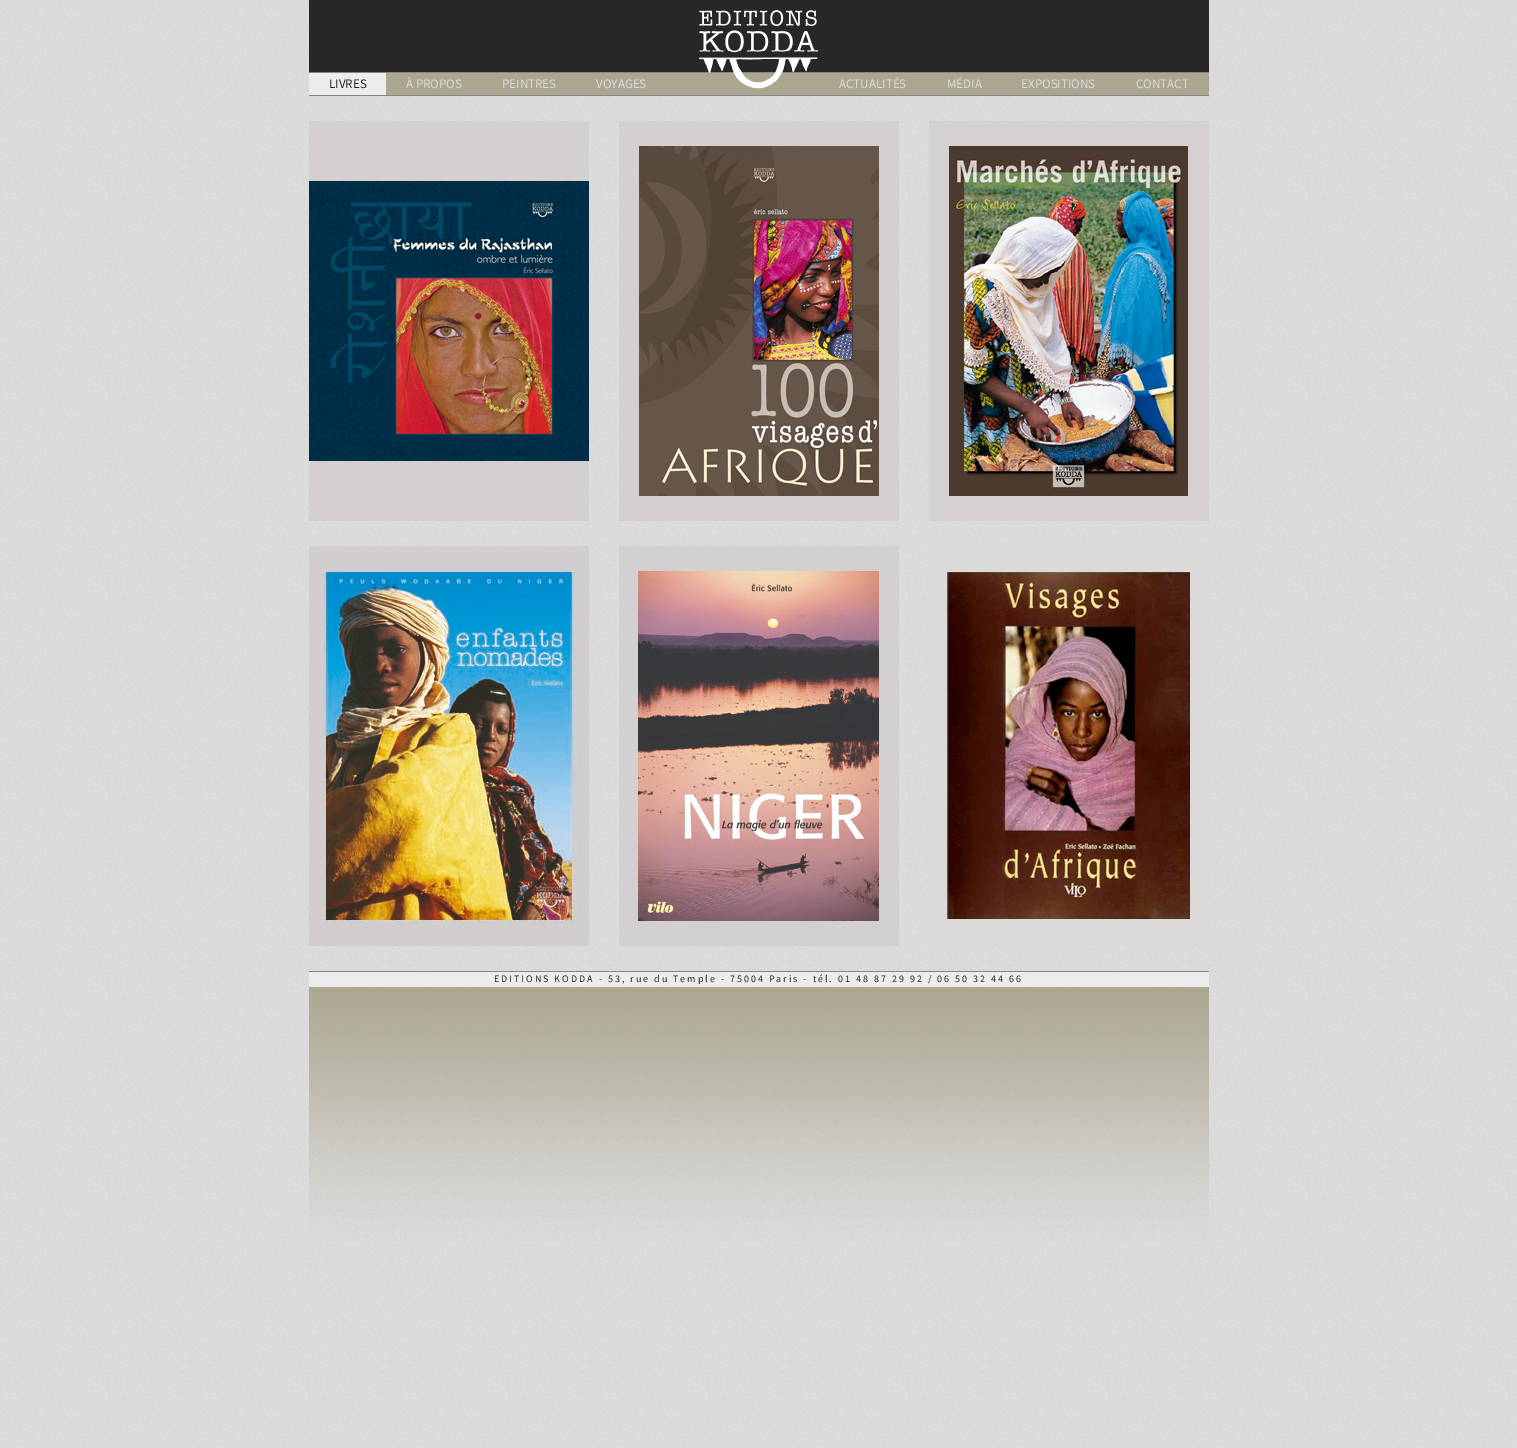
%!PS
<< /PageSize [1517 1448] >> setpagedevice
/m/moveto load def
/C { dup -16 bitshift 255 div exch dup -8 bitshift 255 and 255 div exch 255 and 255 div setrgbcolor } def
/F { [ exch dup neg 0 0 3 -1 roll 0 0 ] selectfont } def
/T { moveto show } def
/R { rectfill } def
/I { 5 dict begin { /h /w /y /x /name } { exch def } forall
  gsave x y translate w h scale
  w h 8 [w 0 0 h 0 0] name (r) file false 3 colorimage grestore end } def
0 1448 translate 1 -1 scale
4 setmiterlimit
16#FFFFFF C
0 0 1517 1448 R
(1.rgb) 0 0 1517 1448 I
16#272727 C
309 0 900 72 R
16#878787 C
309 95 900 1 R
16#ABA68F C
386 73 823 22 R
16#878787 C
309 72 900 1 R
(2.rgb) 699 10 120 79 I
16#ECECEC C
309 73 77 22 R
/SourceSansPro-Regular 13 F
16#272727 C
(LIVRES) 329 88 T
16#DCDCDC C
(À PROPOS) 406 88 T
(PEINTRES) 502 88 T
(VOYAGES) 596 88 T
(ACTUALITÉS) 839 88 T
(MÉDIA) 947 88 T
(EXPOSITIONS) 1021 88 T
(CONTACT) 1136 88 T
(3.rgb) 309 121 280 400 I
(4.rgb) 619 121 280 400 I
(5.rgb) 929 121 280 400 I
(6.rgb) 309 546 280 400 I
(7.rgb) 619 546 280 400 I
(8.rgb) 929 546 280 400 I
16#ECECEC C
309 972 900 15 R
16#878787 C
309 971 900 1 R
/SourceSansPro-Regular 10 F
16#272727 C
494 982 m 2 0 (EDITIONS KODDA - 53, rue du Temple - 75004 Paris - tél. 01 48 87 29 92 / 06 50 32 44 66) ashow
(9.rgb) 309 987 900 254 I
showpage
